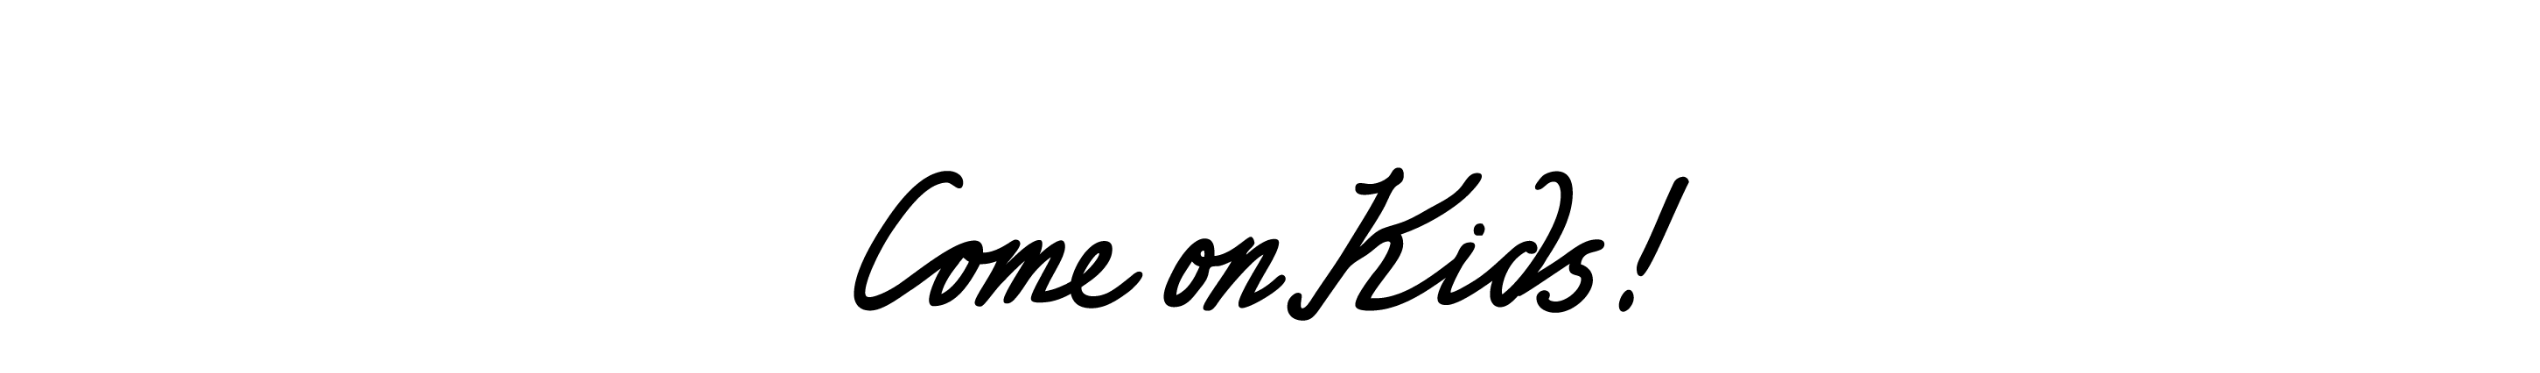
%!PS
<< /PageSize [2540 373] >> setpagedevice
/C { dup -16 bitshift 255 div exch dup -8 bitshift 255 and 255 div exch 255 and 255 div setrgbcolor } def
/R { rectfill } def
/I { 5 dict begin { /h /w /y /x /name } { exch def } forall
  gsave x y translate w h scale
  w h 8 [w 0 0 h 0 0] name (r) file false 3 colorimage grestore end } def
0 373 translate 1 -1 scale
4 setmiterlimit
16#FFFFFF C
0 0 2540 373 R
(1.rgb) 853 167 837 154 I
showpage
